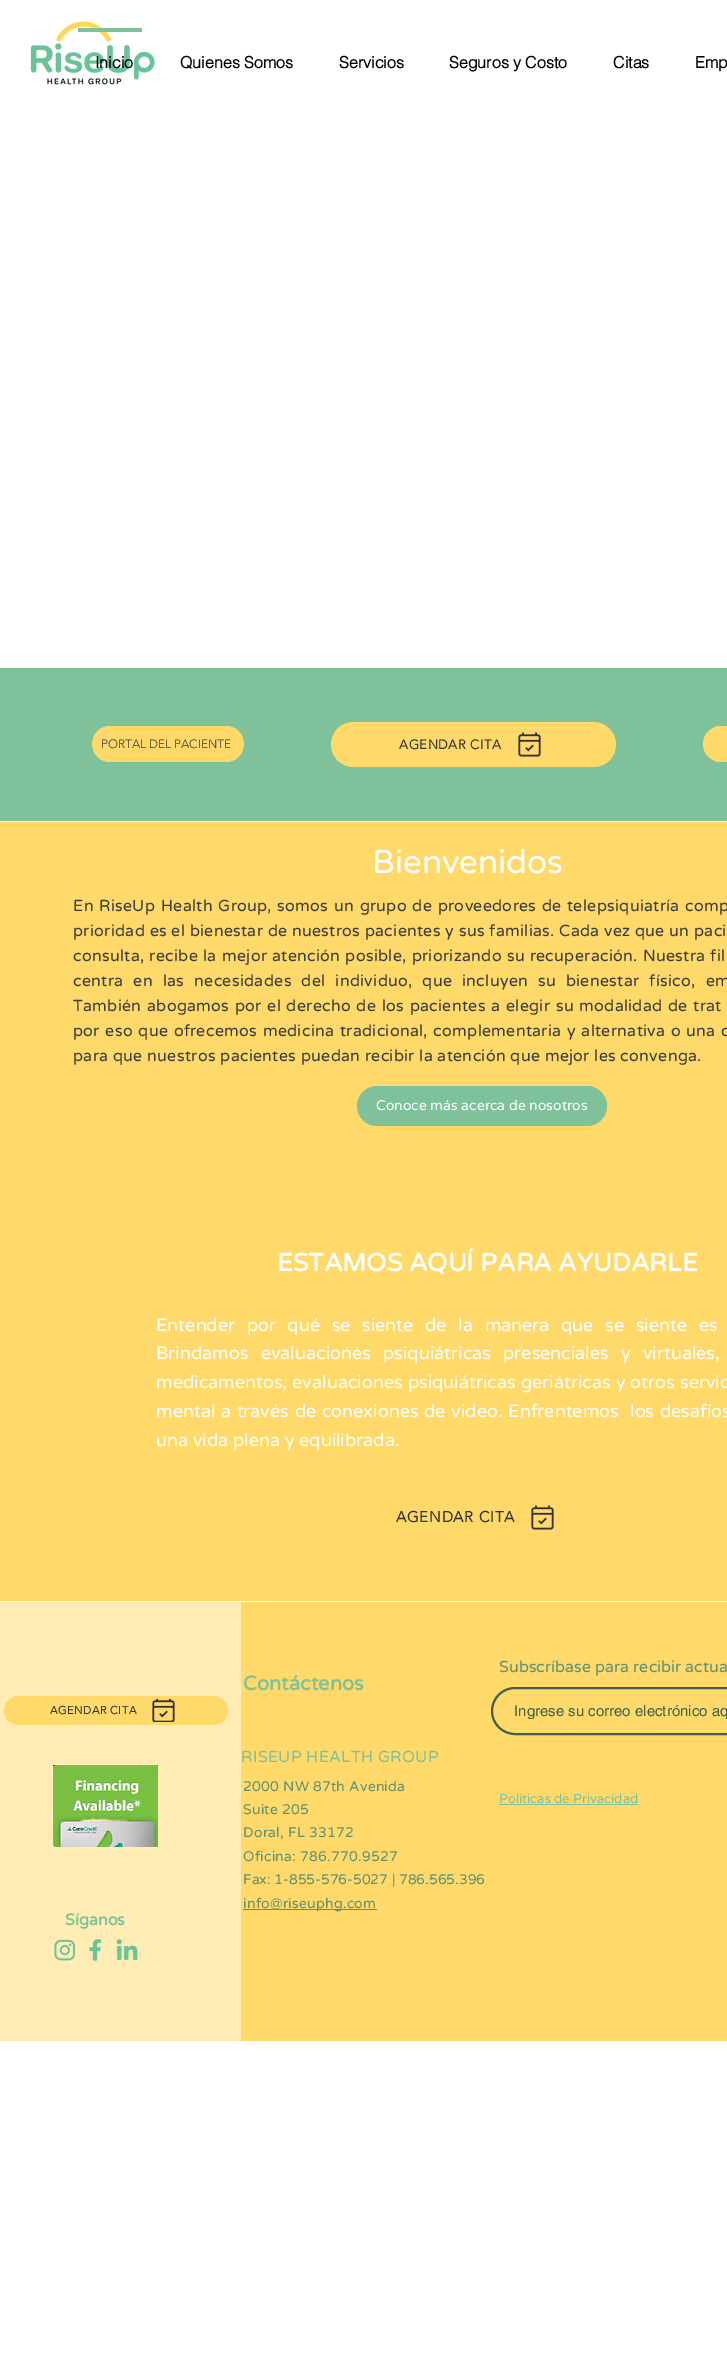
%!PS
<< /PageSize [727 2378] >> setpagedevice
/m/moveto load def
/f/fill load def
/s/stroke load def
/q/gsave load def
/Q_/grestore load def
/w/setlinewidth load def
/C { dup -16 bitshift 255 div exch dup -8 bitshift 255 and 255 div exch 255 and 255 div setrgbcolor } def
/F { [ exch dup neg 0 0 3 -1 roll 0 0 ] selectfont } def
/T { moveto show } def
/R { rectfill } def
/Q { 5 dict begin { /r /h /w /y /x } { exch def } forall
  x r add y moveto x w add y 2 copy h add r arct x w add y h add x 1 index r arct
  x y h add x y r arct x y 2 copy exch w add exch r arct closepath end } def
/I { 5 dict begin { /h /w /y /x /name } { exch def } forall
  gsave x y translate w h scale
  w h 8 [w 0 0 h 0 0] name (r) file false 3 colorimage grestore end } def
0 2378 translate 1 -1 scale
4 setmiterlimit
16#FFFFFF C
0 0 727 2378 R
(1.rgb) 30 21 125 64 I
16#7FC19B C
78 28 64 4 R
/helvetica-Bold 16 F
16#000000 C
(Inicio) 95 68 T
(Quienes Somos) 180 68 T
(Servicios) 339 68 T
(Seguros y Costo) 449 68 T
(Citas) 613 68 T
(Emp) 695 68 T
16#7FC19B C
0 668 727 153 R
16#FFDA6A C
92 726 152 36 18 Q f
/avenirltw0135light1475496-Light 12 F
16#3B3B3B C
(PORTAL DEL PACIENTE) 101 748 T
16#FFDA6A C
331 722 285 45 22.5 Q f
/avenirltw0135light1475496-Bold 13 F
16#323232 C
399 749 m .6 0 (AGENDAR CITA) ashow
(2.rgb) 518 732 23 25 I
16#FFDA6A C
703 726 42 36 18 Q f
0 822 727 779 R
/VarelaRound-Regular 33 F
16#FFFFFF C
(Bienvenidos) 372 873 T
/VarelaRound-Regular 16 F
16#3B3B3B C
73 911 m 1 0 32 .32 0 (En RiseUp Health Group, somos un grupo de proveedores de telepsiquiatría comp) awidthshow
73 936 m .32 0 (prioridad es el bienestar de nuestros pacientes y sus familias. Cada vez que un paci) ashow
73 961 m .5 0 32 .32 0 (consulta, recibe la mejor atención posible, priorizando su recuperación. Nuestra fil) awidthshow
73 986 m 5.4 0 32 .32 0 (centra en las necesidades del individuo, que incluyen su bienestar físico, em) awidthshow
73 1011 m 1 0 32 .32 0 (También abogamos por el derecho de los pacientes a elegir su modalidad de trat) awidthshow
73 1036 m 1 0 32 .32 0 (por eso que ofrecemos medicina tradicional, complementaria y alternativa o una c) awidthshow
73 1061 m .32 0 (para que nuestros pacientes puedan recibir la atención que mejor les convenga.) ashow
16#7FC19B C
357 1086 250 40 20 Q f
/VarelaRound-Regular 14 F
16#FFFFFF C
(Conoce más acerca de nosotros) 376 1110 T
/VarelaRound-Bold 25 F
(ESTAMOS AQUÍ PARA AYUDARLE) 277 1271 T
/VarelaRound-Regular 18 F
156 1331 m 7 0 32 (Entender por qué se siente de la manera que se siente es) widthshow
156 1359 m 7.5 0 32 (Brindamos evaluaciones psiquiátricas presenciales y virtuales,) widthshow
156 1388 m .5 0 32 (medicamentos, evaluaciones psiquiátricas geriátricas y otros servic) widthshow
156 1417 m 1 0 32 (mental a través de conexiones de video. Enfrentemos  los desafíos) widthshow
(una vida plena y equilibrada.) 156 1446 T
/avenirltw0135light1475496-Bold 15 F
16#323232 C
396 1522 m .75 0 (AGENDAR CITA) ashow
(2.rgb) 531 1505 23 25 I
16#FFEDB5 C
0 1602 241 439 R
16#FFDA6A C
4 1696 224 29 14.5 Q f
/avenirltw0135light1475496-Bold 11 F
16#323232 C
50 1714 m .5 0 (AGENDAR CITA) ashow
(3.rgb) 152 1699 23 23 I
(4.rgb) 53 1765 105 82 I
/VarelaRound-Bold 16 F
16#7FC19B C
(Síganos) 65 1925 T
(5.rgb) 54 1939 22 22 I
(6.rgb) 89 1939 13 22 I
(7.rgb) 116 1939 22 21 I
16#FFDA6A C
241 1602 486 439 R
/VarelaRound-Bold 20 F
16#7FC19B C
(Contáctenos) 243 1690 T
/VarelaRound-Regular 16 F
241 1762 m .32 0 (RISEUP HEALTH GROUP) ashow
/VarelaRound-Regular 14 F
16#5F9174 C
243 1791 m .25 0 (2000 NW 87th Avenida) ashow
243 1814 m .25 0 (Suite 205) ashow
243 1837 m .25 0 (Doral, FL 33172) ashow
243 1861 m .25 0 (Oficina: 786.770.9527) ashow
(Fax: 1-855-576-5027 | 786.565.396) 243 1884 T
243 1909 134 1 R
243 1908 m .25 0 (info@riseuphg.com) ashow
/VarelaRound-Regular 16 F
(Subscríbase para recibir actua) 499 1672 T
16#40614D C
2 w
492 1688 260 46 23 Q s
q
514 1702 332 17 rectclip
/helvetica-Regular 15 F
(Ingrese su correo electrónico aq) 514 1716 T
Q_
/VarelaRound-Regular 13 F
16#7FC19B C
(Políticas de Privacidad) 499 1803 T
499 1804 139 1 R
showpage
